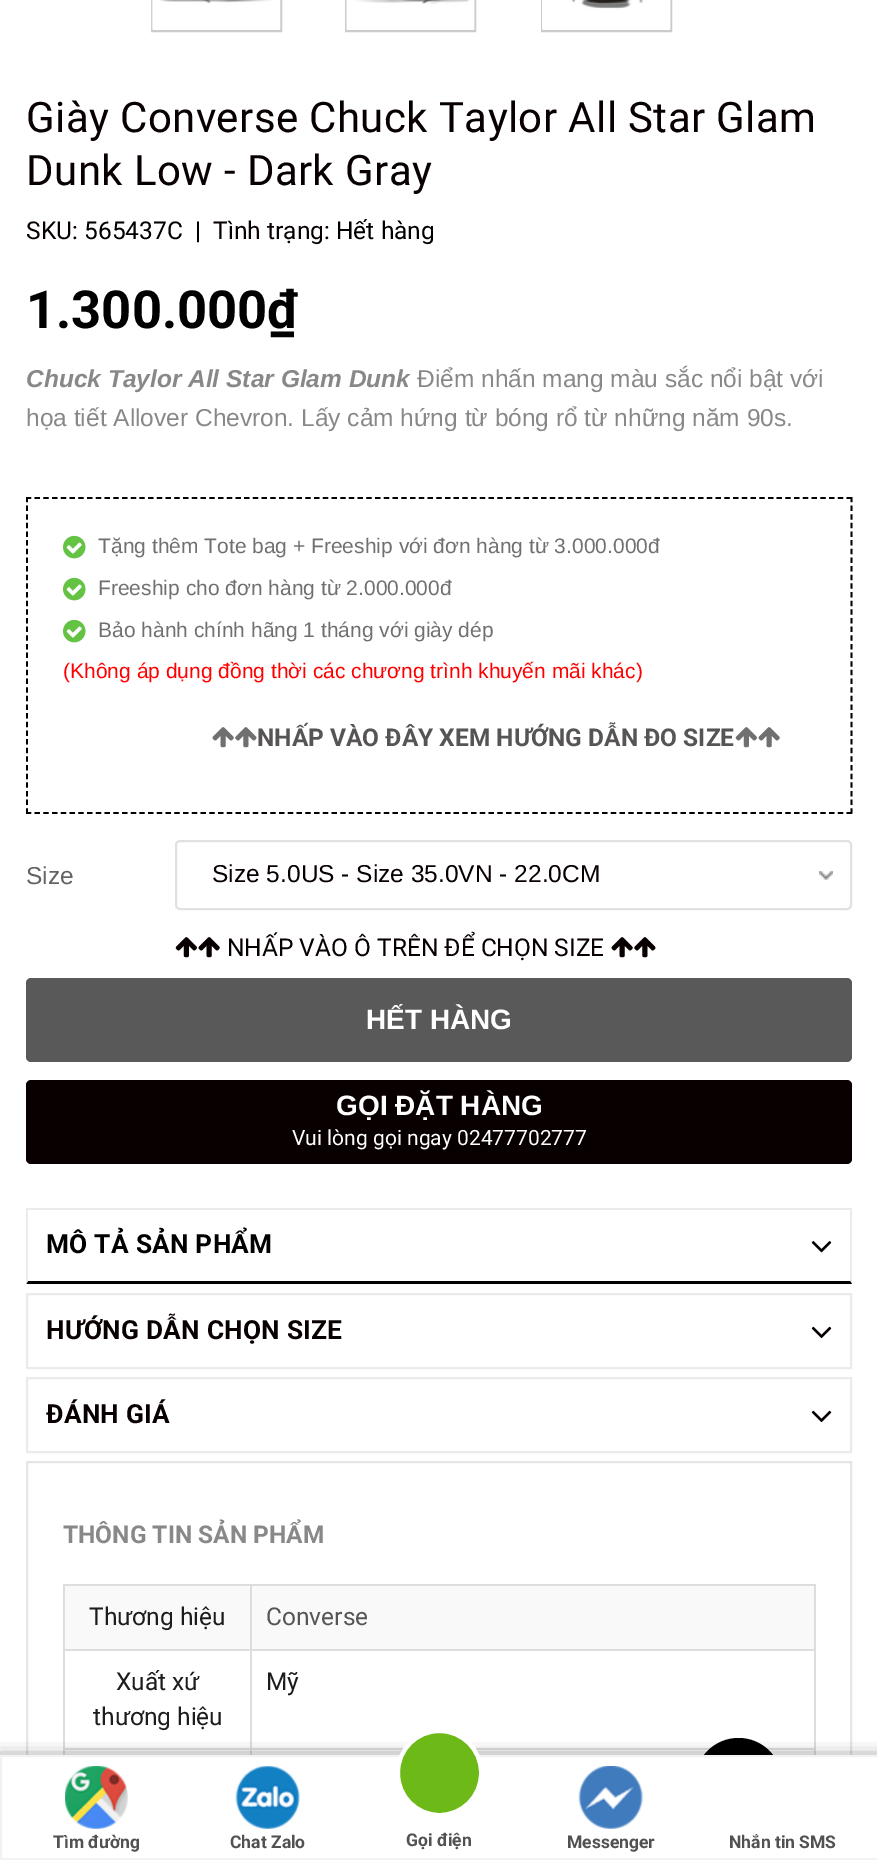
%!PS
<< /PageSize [877 1860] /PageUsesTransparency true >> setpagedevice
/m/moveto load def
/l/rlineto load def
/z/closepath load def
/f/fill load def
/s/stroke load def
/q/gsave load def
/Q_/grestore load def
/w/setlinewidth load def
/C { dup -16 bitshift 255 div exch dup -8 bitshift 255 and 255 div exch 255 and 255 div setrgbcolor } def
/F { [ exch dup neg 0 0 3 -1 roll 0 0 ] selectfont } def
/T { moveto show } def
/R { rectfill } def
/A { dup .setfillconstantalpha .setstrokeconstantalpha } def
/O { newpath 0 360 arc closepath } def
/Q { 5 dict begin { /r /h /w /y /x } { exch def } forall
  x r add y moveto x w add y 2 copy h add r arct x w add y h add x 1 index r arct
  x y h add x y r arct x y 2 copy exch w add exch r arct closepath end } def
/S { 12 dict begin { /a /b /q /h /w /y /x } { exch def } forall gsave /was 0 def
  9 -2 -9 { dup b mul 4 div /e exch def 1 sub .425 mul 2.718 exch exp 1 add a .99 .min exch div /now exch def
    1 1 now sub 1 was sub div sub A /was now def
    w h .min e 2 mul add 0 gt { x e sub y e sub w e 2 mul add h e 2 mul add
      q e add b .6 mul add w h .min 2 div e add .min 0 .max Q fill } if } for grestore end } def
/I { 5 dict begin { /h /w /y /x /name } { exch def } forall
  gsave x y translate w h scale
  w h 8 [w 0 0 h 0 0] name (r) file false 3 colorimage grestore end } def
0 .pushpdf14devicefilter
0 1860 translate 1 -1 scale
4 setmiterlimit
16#FFFFFF C
0 0 877 1860 R
16#CCCCCC C
2 w
152 -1 129 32 rectstroke
(1.rgb) 151 0 130 30 I
346 -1 129 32 rectstroke
(2.rgb) 346 0 129 30 I
542 -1 129 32 rectstroke
(3.rgb) 542 0 129 30 I
/Roboto-Regular 42 F
16#080000 C
26 132 m .4 0 (Giày Converse Chuck Taylor All Star Glam) ashow
26 185 m .4 0 (Dunk Low - Dark Gray) ashow
/Roboto-Regular 24.5 F
(SKU:) 26 239 T
16#000000 C
(565437C) 84 239 T
16#080000 C
(|  Tình trạng:) 195 239 T
16#000000 C
(Hết hàng) 336 239 T
/Roboto-Bold 52.5 F
(1.300.000₫) 26 328 T
/LiberationSans-BoldItalic 24.5 F
16#888888 C
(Chuck Taylor All Star Glam Dunk) 26 387 T
/LiberationSans-Regular 24.5 F
(Điểm nhấn mang màu sắc nổi bật với) 417 387 T
(họa tiết Allover Chevron. Lấy cảm hứng từ bóng rổ từ những năm 90s.) 26 426 T
16#000000 C
1.8 w
[5.25 3.48] 0 setdash
26 498 m 826 0 l s
[5.25 3.4] 0 setdash
851.5 497 m 0 317 l s
[5.25 3.48] 0 setdash
26 813 m 826 0 l s
[5.25 3.4] 0 setdash
27 497 m 0 317 l s
(4.rgb) 63 535 23 24 I
/LiberationSans-Regular 21 F
16#707070 C
(Tặng thêm Tote bag + Freeship với đơn hàng từ 3.000.000đ) 98 553 T
(4.rgb) 63 577 23 24 I
(Freeship cho đơn hàng từ 2.000.000đ) 98 595 T
(4.rgb) 63 619 23 24 I
(Bảo hành chính hãng 1 tháng với giày dép) 98 637 T
16#FF0000 C
(\(Không áp dụng đồng thời các chương trình khuyến mãi khác\)) 63 678 T
(5.rgb) 212 727 22 21 I
(6.rgb) 235 727 22 21 I
/Roboto-Bold 24.5 F
16#575454 C
(NHẤP VÀO ĐÂY XEM HƯỚNG DẪN ĐO SIZE) 257 746 T
(7.rgb) 735 727 22 21 I
(5.rgb) 758 727 22 21 I
/LiberationSans-Regular 24.5 F
16#636363 C
(Size) 26 884 T
(8.rgb) 819 871 14 9 I
16#E1E1E1 C
2 w
[] 0 setdash
176 841 675 68 4 Q s
16#080000 C
(Size 5.0US - Size 35.0VN - 22.0CM) 212 882 T
(9.rgb) 175 937 22 21 I
(10.rgb) 198 937 22 21 I
/Roboto-Regular 24.5 F
(NHẤP VÀO Ô TRÊN ĐỂ CHỌN SIZE) 227 956 T
(10.rgb) 611 937 22 21 I
(11.rgb) 634 937 22 21 I
16#595959 C
26 978 826 84 5 Q f
/LiberationSans-Bold 28 F
16#FFFFFF C
(HẾT HÀNG) 366 1029 T
16#080000 C
26 1080 826 84 5 Q f
16#FFFFFF C
(GỌI ĐẶT HÀNG) 336 1115 T
/Roboto-Regular 21 F
(Vui lòng gọi ngay 02477702777) 292 1145 T
16#EBEBEB C
26 1208 826 2 R
852 1208 m 0 76 l -2 -3 l 0 -72 l z f
16#000000 C
852 1284 m -826 0 l 2 -3 l 822 0 l z f
16#EBEBEB C
26 1284 m 0 -76 l 2 1 l 0 72 l z f
/Roboto-Bold 26.25 F
16#000000 C
46 1253 m .25 0 (MÔ TẢ SẢN PHẨM) ashow
(12.rgb) 811 1241 21 12 I
16#EBEBEB C
27 1294 824 74 rectstroke
16#080000 C
46 1339 m .25 0 (HƯỚNG DẪN CHỌN SIZE) ashow
(13.rgb) 811 1326 21 13 I
16#EBEBEB C
27 1378 824 74 rectstroke
16#080000 C
46 1423 m .25 0 (ĐÁNH GIÁ) ashow
(13.rgb) 811 1410 21 13 I
16#E5E5E5 C
27 1462 824 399 rectstroke
/Roboto-Bold 24.5 F
16#888888 C
(THÔNG TIN SẢN PHẨM) 63 1543 T
16#DDDDDD C
63 1584 753 2 R
814 1584 2 171 R
63 1584 2 171 R
16#F9F9F9 C
65 1586 749 63 R
/Roboto-Regular 24.5 F
16#1C1C1C C
(Thương hiệu) 89 1625 T
16#DDDDDD C
250 1649 566 2 R
250 1748 566 2 R
16#F9F9F9 C
65 1750 749 5 R
16#DDDDDD C
250 1748 2 7 R
63 1748 189 2 R
250 1649 2 101 R
63 1649 189 2 R
250 1584 2 66 R
16#575454 C
(Converse) 266 1625 T
16#1C1C1C C
(Xuất xứ) 116 1690 T
(thương hiệu) 93 1725 T
(Mỹ) 266 1690 T
16#000000 C
738.5 1781.5 43.5 O f
0 1762 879 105 0 9 1 S
16#FFFFFF C
1 1756 m 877 0 l 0 103 l -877 0 l z q f Q_
16#F2F2F2 C
s
(14.rgb) 65 1766 63 63 I
/Roboto-Bold 17.5 F
16#515151 C
(Tìm đường) 53 1848 T
(15.rgb) 235 1766 65 63 I
(Chat Zalo) 230 1848 T
16#6CB917 C
398 1731 83 84 41.5 Q q f Q_
16#FFFFFF C
4 w
s
16#515151 C
(Gọi điện) 406 1846 T
(16.rgb) 578 1766 65 63 I
(Messenger) 567 1848 T
(Nhắn tin SMS) 729 1848 T
.poppdf14devicefilter showpage
